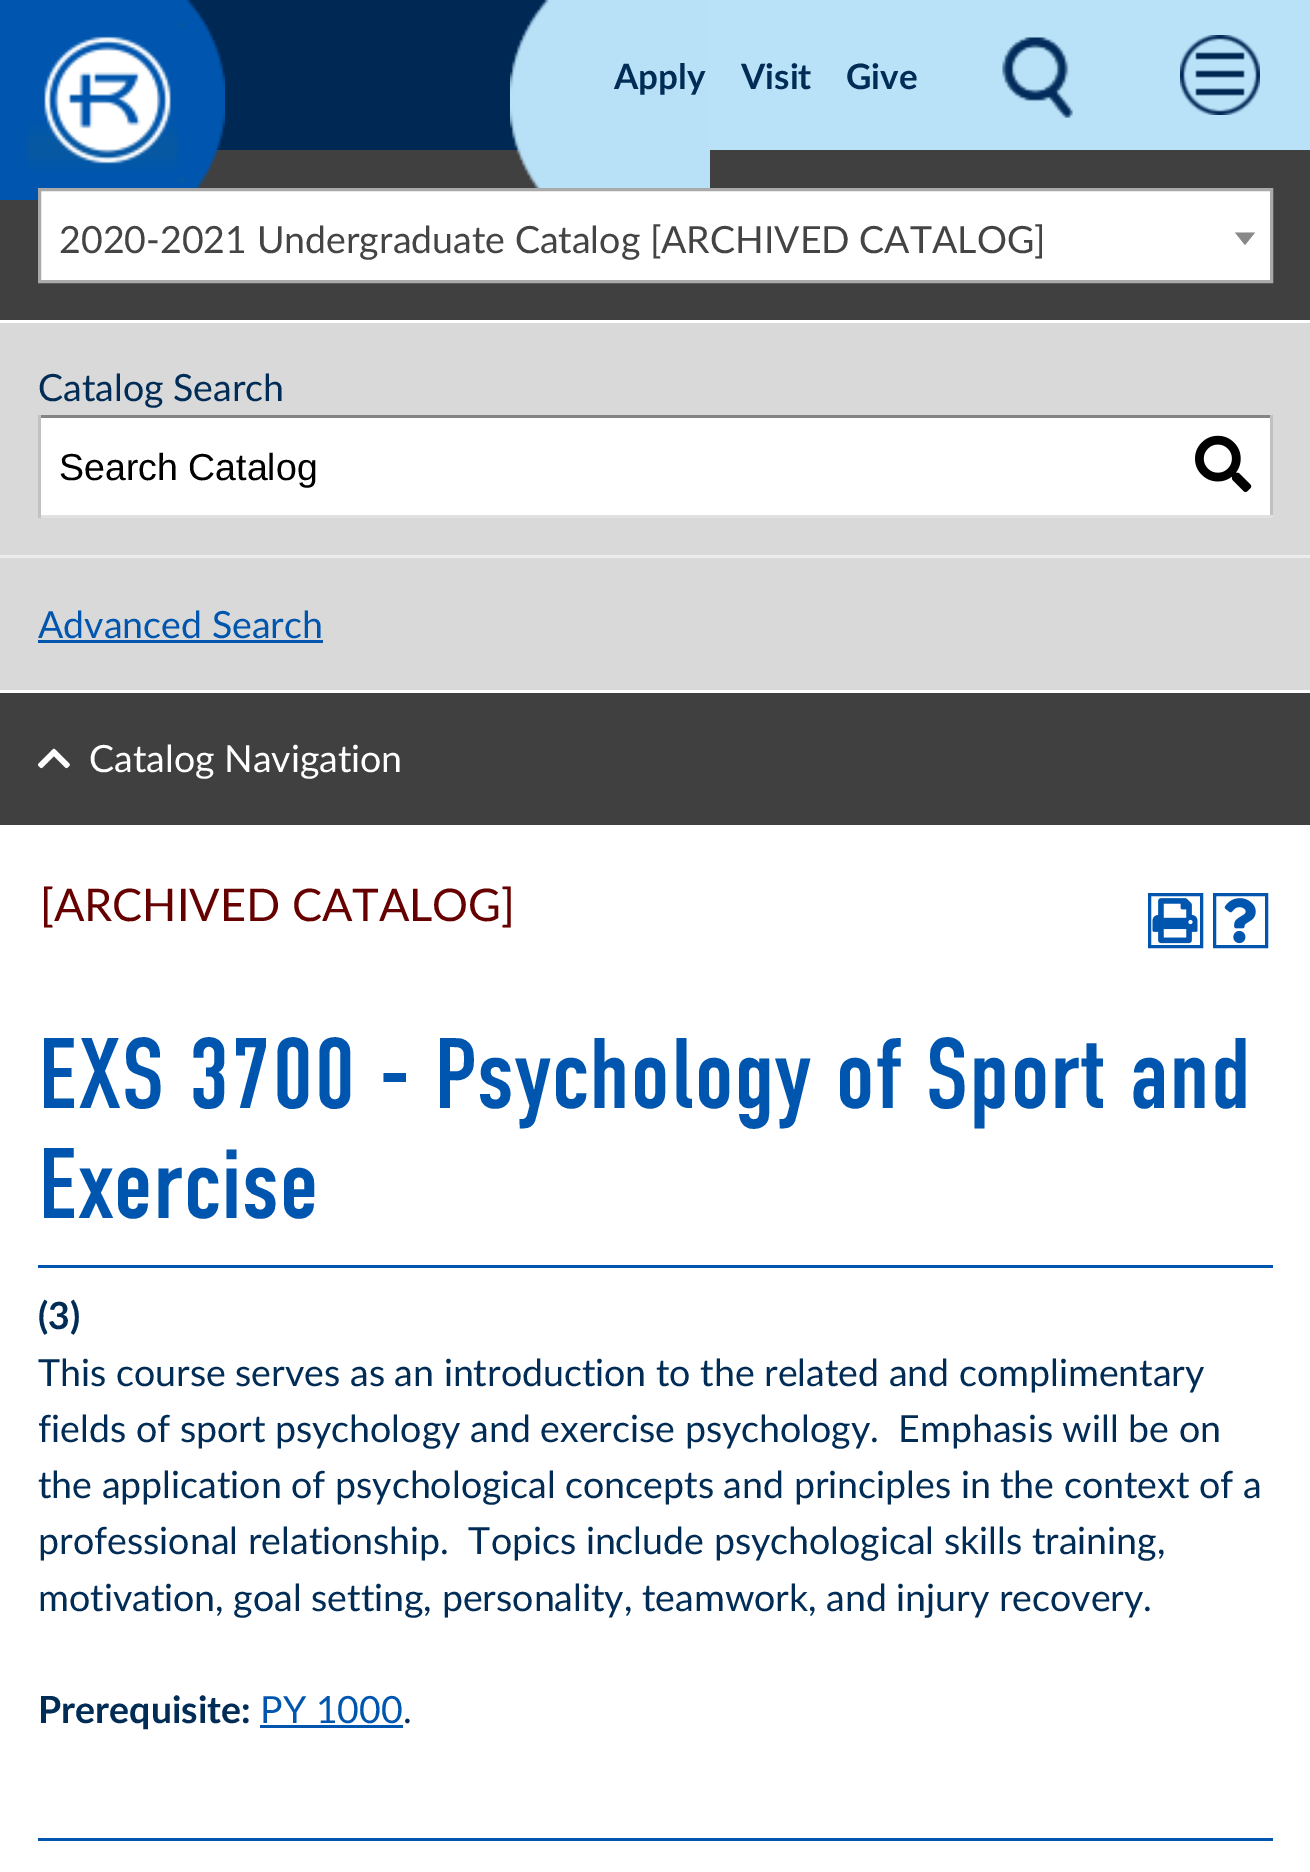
%!PS
<< /PageSize [1310 1872] >> setpagedevice
/m/moveto load def
/l/rlineto load def
/z/closepath load def
/f/fill load def
/s/stroke load def
/q/gsave load def
/Q_/grestore load def
/w/setlinewidth load def
/C { dup -16 bitshift 255 div exch dup -8 bitshift 255 and 255 div exch 255 and 255 div setrgbcolor } def
/F { [ exch dup neg 0 0 3 -1 roll 0 0 ] selectfont } def
/T { moveto show } def
/R { rectfill } def
/I { 5 dict begin { /h /w /y /x /name } { exch def } forall
  gsave x y translate w h scale
  w h 8 [w 0 0 h 0 0] name (r) file false 3 colorimage grestore end } def
0 1872 translate 1 -1 scale
4 setmiterlimit
16#FFFFFF C
0 0 1310 1872 R
16#002855 C
184 0 367 150 R
16#404040 C
0 150 1310 170 R
(1.rgb) 0 0 225 200 I
16#B9E1F8 C
710 0 600 150 R
(2.rgb) 510 0 200 188 I
(3.rgb) 1002 37 71 81 I
(4.rgb) 1180 35 80 80 I
/Lato-Bold 35 F
16#002C56 C
(Apply) 614 89 T
(Visit) 741 89 T
(Give) 846 89 T
16#FFFFFF C
39.5 189.5 m 1232 0 l 0 92 l -1232 0 l z q f Q_
16#AAAAAA C
3 w
s
/Lato-Regular 37.5 F
16#444444 C
(2020-2021 Undergraduate Catalog [ARCHIVED CATALOG]) 59 253 T
16#888888 C
1235 232.5 m 20 0 l -10 12.5 l z f
16#D9D9D9 C
0 323 1310 367 R
16#002C56 C
(Catalog Search) 38 401 T
16#FFFFFF C
41 418 1229 97 R
16#848484 C
38 415 1235 3 R
16#C1C1C1 C
1270 415 3 103 R
16#E1E1E1 C
38 515 1235 3 R
16#C1C1C1 C
38 415 3 103 R
/LiberationSans-Regular 37.5 F
16#000000 C
(Search Catalog) 59 480 T
(5.rgb) 1195 435 57 57 I
16#ECECEC C
0 555 1310 3 R
/Lato-Regular 37.5 F
16#0056AE C
(Advanced Search) 38 638 T
38 640 285 3 R
16#404040 C
0 693 1310 132 R
(6.rgb) 38 748 32 21 I
16#FFFFFF C
(Catalog Navigation) 89 772 T
/Lato-Regular 45 F
16#660000 C
([ARCHIVED CATALOG]) 40 921 T
16#0056AE C
1149.5 894.5 52 52 rectstroke
(7.rgb) 1152 898 46 46 I
1214.5 894.5 52 52 rectstroke
(8.rgb) 1224 898 32 46 I
/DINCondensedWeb-Regular 100 F
(EXS 3700 - Psychology of Sport and) 38 1108 T
(Exercise) 38 1218 T
38 1265 1235 3 R
/Lato-Bold 37.5 F
16#002C56 C
(\(3\)) 38 1329 T
/Lato-Regular 37.5 F
(This course serves as an introduction to the related and complimentary) 38 1386 T
(fields of sport psychology and exercise psychology.  Emphasis will be on) 38 1442 T
(the application of psychological concepts and principles in the context of a) 38 1498 T
(professional relationship.  Topics include psychological skills training,) 38 1554 T
(motivation, goal setting, personality, teamwork, and injury recovery.) 38 1611 T
/Lato-Bold 37.5 F
(Prerequisite:) 38 1723 T
/Lato-Regular 37.5 F
16#0056AE C
(PY 1000) 260 1723 T
260 1725 143 3 R
16#002C56 C
(.) 403 1723 T
16#0056AE C
38 1838 1235 3 R
showpage
